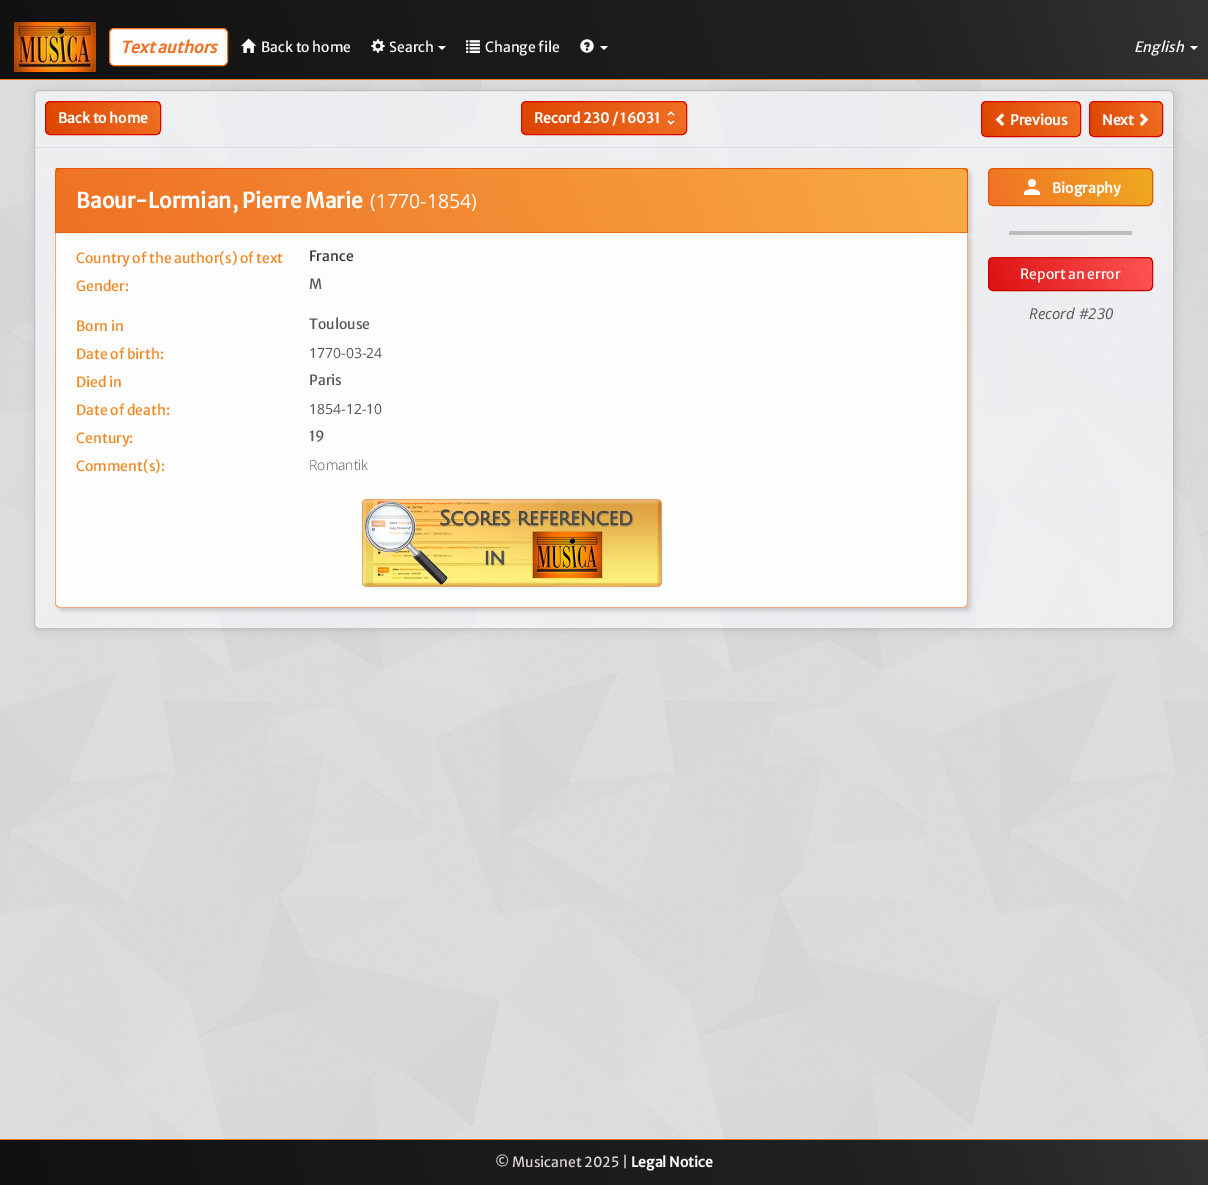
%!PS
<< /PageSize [1208 1185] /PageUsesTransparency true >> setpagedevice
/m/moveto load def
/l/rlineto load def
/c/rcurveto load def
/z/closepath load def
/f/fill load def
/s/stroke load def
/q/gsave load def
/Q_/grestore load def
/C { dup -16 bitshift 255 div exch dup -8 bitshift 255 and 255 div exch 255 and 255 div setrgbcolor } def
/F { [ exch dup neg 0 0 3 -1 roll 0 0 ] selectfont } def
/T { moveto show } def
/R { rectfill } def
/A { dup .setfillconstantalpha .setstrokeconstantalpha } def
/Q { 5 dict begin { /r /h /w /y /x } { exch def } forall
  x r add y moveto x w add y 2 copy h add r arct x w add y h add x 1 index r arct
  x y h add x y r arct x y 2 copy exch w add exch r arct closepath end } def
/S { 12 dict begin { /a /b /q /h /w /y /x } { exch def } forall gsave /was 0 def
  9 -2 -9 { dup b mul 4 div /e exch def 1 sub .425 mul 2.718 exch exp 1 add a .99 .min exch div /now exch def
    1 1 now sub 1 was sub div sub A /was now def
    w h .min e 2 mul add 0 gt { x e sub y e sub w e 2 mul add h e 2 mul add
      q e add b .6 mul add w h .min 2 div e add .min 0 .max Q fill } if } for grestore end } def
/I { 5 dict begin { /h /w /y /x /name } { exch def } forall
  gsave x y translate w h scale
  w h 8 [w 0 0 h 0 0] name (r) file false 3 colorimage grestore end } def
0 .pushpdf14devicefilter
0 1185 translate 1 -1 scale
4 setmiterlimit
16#FFFFFF C
0 0 1208 1185 R
(1.rgb) 0 80 1208 1059 I
q
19 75 m 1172 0 l 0 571 l -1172 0 l z 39 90 m 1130 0 l 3 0 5 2 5 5 c 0 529 l 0 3 -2 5 -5 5 c -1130 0 l -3 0 -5 -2 -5 -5 c 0 -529 l 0 -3 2 -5 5 -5 c z eoclip newpath
16#999999 C
35 91 1140 539 5 5 .4 S
Q_
q 0 0 m 1208 0 l 0 79 l -1208 0 l z clip newpath
<< /ShadingType 2 /ColorSpace /DeviceRGB /Coords [58 238 1150 -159] /Extend [true true] /Function << /FunctionType 3 /Domain [0 1] /Functions [<< /FunctionType 2 /Domain [0 1] /C0 [.067 .067 .067] /C1 [.133 .133 .133] /N 1 >> << /FunctionType 2 /Domain [0 1] /C0 [.133 .133 .133] /C1 [.2 .2 .2] /N 1 >>] /Bounds [.75] /Encode [0 1 0 1] >> >> shfill Q_
16#F07125 C
0 79 1208 1 R
(2.rgb) 14 22 82 50 I
16#FEFEFE C
109.5 28.5 118 37 4.5 Q q f Q_
16#F07125 C
s
/MerriweatherSans-BoldItalic 16 F
(Text authors) 120 53 T
(3.rgb) 241 38 15 15 I
/MerriweatherSans-Regular 14 F
16#FFFFFF C
(Back to home) 261 52 T
(4.rgb) 371 39 14 14 I
(Search) 389 52 T
438 46 m 8 0 l -4 4 l z f
(5.rgb) 466 40 14 13 I
(Change file) 485 52 T
(6.rgb) 580 39 14 14 I
600 46 m 8 0 l -4 4 l z f
/MerriweatherSans-Italic 14 F
(English) 1134 52 T
1190 46 m 8 0 l -4 4 l z f
0.7 A
16#F5F6F9 C
34.5 90.5 1139 538 4.5 Q f
1 A
16#C1C1C1 C
34.5 90.5 1139 538 4.5 Q s
q
45 101 116 34 5 Q clip newpath
q 46 102 m 114 0 l 0 32 l -114 0 l z clip newpath
<< /ShadingType 2 /ColorSpace /DeviceRGB /Coords [48 140 158 96] /Extend [true true] /Function << /FunctionType 2 /Domain [0 1] /C0 [.867 .267 0] /C1 [.941 .443 .145] /N 1 >> >> shfill Q_
Q_
16#DD0000 C
45.5 101.5 115 33 4.5 Q s
/MerriweatherSans-Bold 14 F
16#FFFFFF C
(Back to home) 58 123 T
q
521 101 166 34 5 Q clip newpath
q 522 102 m 164 0 l 0 32 l -164 0 l z clip newpath
<< /ShadingType 2 /ColorSpace /DeviceRGB /Coords [528 149 680 87] /Extend [true true] /Function << /FunctionType 2 /Domain [0 1] /C0 [.867 .267 0] /C1 [.941 .443 .145] /N 1 >> >> shfill Q_
Q_
16#DD0000 C
521.5 101.5 165 33 4.5 Q s
16#FFFFFF C
(Record 230 / 16031) 534 123 T
(7.rgb) 667 111 8 14 I
q
981 101 100 36 5 Q clip newpath
q 982 102 m 98 0 l 0 34 l -98 0 l z clip newpath
<< /ShadingType 2 /ColorSpace /DeviceRGB /Coords [983 138 1079 100] /Extend [true true] /Function << /FunctionType 2 /Domain [0 1] /C0 [.867 .267 0] /C1 [.941 .443 .145] /N 1 >> >> shfill Q_
Q_
16#DD0000 C
981.5 101.5 99 35 4.5 Q s
(8.rgb) 995 113 10 13 I
16#FFFFFF C
(Previous) 1010 125 T
q
1089 101 74 36 5 Q clip newpath
q 1090 102 m 72 0 l 0 34 l -72 0 l z clip newpath
<< /ShadingType 2 /ColorSpace /DeviceRGB /Coords [1089 134 1163 104] /Extend [true true] /Function << /FunctionType 2 /Domain [0 1] /C0 [.867 .267 0] /C1 [.941 .443 .145] /N 1 >> >> shfill Q_
Q_
16#DD0000 C
1089.5 101.5 73 35 4.5 Q s
16#FFFFFF C
(Next) 1102 125 T
(9.rgb) 1139 113 10 13 I
16#D9DCE4 C
35 147 1138 1 R
16#000000 C
58 171 913 65 5 2 .15 S
q
60 168 m 903 0 l 3 0 5 2 5 5 c 0 60 l -913 0 l 0 -60 l 0 -3 2 -5 5 -5 c z clip newpath
q 56 168 m 911 0 l 0 1 l -911 0 l z clip newpath
<< /ShadingType 2 /ColorSpace /DeviceRGB /Coords [109 300 914 -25] /Extend [true true] /Function << /FunctionType 2 /Domain [0 1] /C0 [.941 .443 .145] /C1 [.976 .667 .267] /N 1 >> >> shfill Q_
q 55 169 m 1 0 l 0 63 l -1 0 l z clip newpath
<< /ShadingType 2 /ColorSpace /DeviceRGB /Coords [-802 363 3 38] /Extend [true true] /Function << /FunctionType 2 /Domain [0 1] /C0 [.941 .443 .145] /C1 [.976 .667 .267] /N 1 >> >> shfill Q_
Q_
q 56 169 m 911 0 l 0 63 l -911 0 l z clip newpath
<< /ShadingType 2 /ColorSpace /DeviceRGB /Coords [109 363 914 38] /Extend [true true] /Function << /FunctionType 2 /Domain [0 1] /C0 [.941 .443 .145] /C1 [.976 .667 .267] /N 1 >> >> shfill Q_
q
60 168 m 903 0 l 3 0 5 2 5 5 c 0 60 l -913 0 l 0 -60 l 0 -3 2 -5 5 -5 c z clip newpath
q 967 169 m 1 0 l 0 63 l -1 0 l z clip newpath
<< /ShadingType 2 /ColorSpace /DeviceRGB /Coords [1020 363 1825 38] /Extend [true true] /Function << /FunctionType 2 /Domain [0 1] /C0 [.941 .443 .145] /C1 [.976 .667 .267] /N 1 >> >> shfill Q_
Q_
q 55 232 m 1 0 l 0 1 l -1 0 l z clip newpath
<< /ShadingType 2 /ColorSpace /DeviceRGB /Coords [-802 426 3 101] /Extend [true true] /Function << /FunctionType 2 /Domain [0 1] /C0 [.941 .443 .145] /C1 [.976 .667 .267] /N 1 >> >> shfill Q_
q 56 232 m 911 0 l 0 1 l -911 0 l z clip newpath
<< /ShadingType 2 /ColorSpace /DeviceRGB /Coords [109 426 914 101] /Extend [true true] /Function << /FunctionType 2 /Domain [0 1] /C0 [.941 .443 .145] /C1 [.976 .667 .267] /N 1 >> >> shfill Q_
q 967 232 m 1 0 l 0 1 l -1 0 l z clip newpath
<< /ShadingType 2 /ColorSpace /DeviceRGB /Coords [1020 426 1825 101] /Extend [true true] /Function << /FunctionType 2 /Domain [0 1] /C0 [.941 .443 .145] /C1 [.976 .667 .267] /N 1 >> >> shfill Q_
0.9 A
16#E55500 C
60 168 m -2 0 -3 0 -4 1 c 1 1 l 3 -1 l 903 0 l 3 1 l 1 -1 l -1 -1 -3 -1 -4 -1 c z f
968 233 m 0 -60 l 0 -1 0 -3 -1 -4 c -1 1 l 1 3 l 0 59 l z f
0.6 A
968 233 m -1 -1 l -911 0 l -1 1 l z f
0.9 A
55 233 m 1 -1 l 0 -59 l 1 -3 l -1 -1 l 0 1 -1 3 -1 4 c z f
/MerriweatherSans-Bold 21 F
1 A
16#FFFFFF C
(Baour-Lormian, Pierre Marie) 76 208 T
/OpenSans-Regular 19.5 F
(\(1770-1854\)) 370 208 T
q
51 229 m 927 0 l 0 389 l -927 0 l z 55 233 m 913 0 l 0 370 l 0 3 -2 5 -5 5 c -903 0 l -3 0 -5 -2 -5 -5 c z eoclip newpath
16#000000 C
58 236 913 375 5 2 .15 S
Q_
0.9 A
55 233 m 913 0 l 0 370 l 0 3 -2 5 -5 5 c -903 0 l -3 0 -5 -2 -5 -5 c z f
0.5 A
16#E55500 C
55 233 m 913 0 l 0 370 l 0 3 -2 5 -5 5 c -903 0 l -3 0 -5 -2 -5 -5 c z 56 233 m 911 0 l 0 370 l 0 2 -2 4 -4 4 c -903 0 l -2 0 -4 -2 -4 -4 c z eofill
/MerriweatherSans-Regular 14 F
1 A
16#F08822 C
(Country of the author\(s\) of text) 76 263 T
16#333333 C
(France) 309 261 T
16#F08822 C
(Gender:) 76 291 T
16#555555 C
(M) 309 289 T
16#F08822 C
(Born in) 76 331 T
16#555555 C
(Toulouse) 309 329 T
16#F08822 C
(Date of birth:) 76 359 T
/OpenSans-Regular 14 F
16#555555 C
(1770-03-24) 309 358 T
/MerriweatherSans-Regular 14 F
16#F08822 C
(Died in) 76 387 T
16#555555 C
(Paris) 309 385 T
16#F08822 C
(Date of death:) 76 415 T
/OpenSans-Regular 14 F
16#555555 C
(1854-12-10) 309 414 T
/MerriweatherSans-Regular 14 F
16#F08822 C
(Century:) 76 443 T
16#555555 C
(19) 309 441 T
16#F08822 C
(Comment\(s\):) 76 471 T
/OpenSans-Light 14 F
16#555555 C
(Romantik) 309 470 T
(10.rgb) 362 499 300 88 I
q
988 168 165 38 5 Q clip newpath
q 989 169 m 163 0 l 0 36 l -163 0 l z clip newpath
<< /ShadingType 2 /ColorSpace /DeviceRGB /Coords [994 218 1147 156] /Extend [true true] /Function << /FunctionType 2 /Domain [0 1] /C0 [.941 .443 .145] /C1 [.941 .667 .133] /N 1 >> >> shfill Q_
Q_
16#E55500 C
988.5 168.5 164 37 4.5 Q s
(11.rgb) 1024 179 16 16 I
/MerriweatherSans-Bold 14 F
16#FFFFFF C
(Biography) 1052 193 T
16#BDBDBD C
1009 231 123 4 R
q
988 257 165 34 5 Q clip newpath
q 989 258 m 163 0 l 0 32 l -163 0 l z clip newpath
<< /ShadingType 2 /ColorSpace /DeviceRGB /Coords [995 305 1146 243] /Extend [true true] /Function << /FunctionType 2 /Domain [0 1] /C0 [.867 .067 .067] /C1 [1 .333 .333] /N 1 >> >> shfill Q_
Q_
16#CC0000 C
988.5 257.5 164 33 4.5 Q s
/MerriweatherSans-Regular 14 F
16#FFFFFF C
(Report an error) 1020 279 T
/OpenSans-Italic 15 F
16#555555 C
(Record #230) 1029 319 T
q 0 1140 m 1208 0 l 0 45 l -1208 0 l z clip newpath
<< /ShadingType 2 /ColorSpace /DeviceRGB /Coords [63 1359 1145 966] /Extend [true true] /Function << /FunctionType 3 /Domain [0 1] /Functions [<< /FunctionType 2 /Domain [0 1] /C0 [.067 .067 .067] /C1 [.133 .133 .133] /N 1 >> << /FunctionType 2 /Domain [0 1] /C0 [.133 .133 .133] /C1 [.2 .2 .2] /N 1 >>] /Bounds [.75] /Encode [0 1 0 1] >> >> shfill Q_
16#F07125 C
0 1139 1208 1 R
/MerriweatherSans-Regular 14 F
16#DCD4D4 C
(© Musicanet 2025 |) 495 1167 T
/MerriweatherSans-Bold 14 F
16#FFFFFF C
(Legal Notice) 631 1167 T
.poppdf14devicefilter showpage
